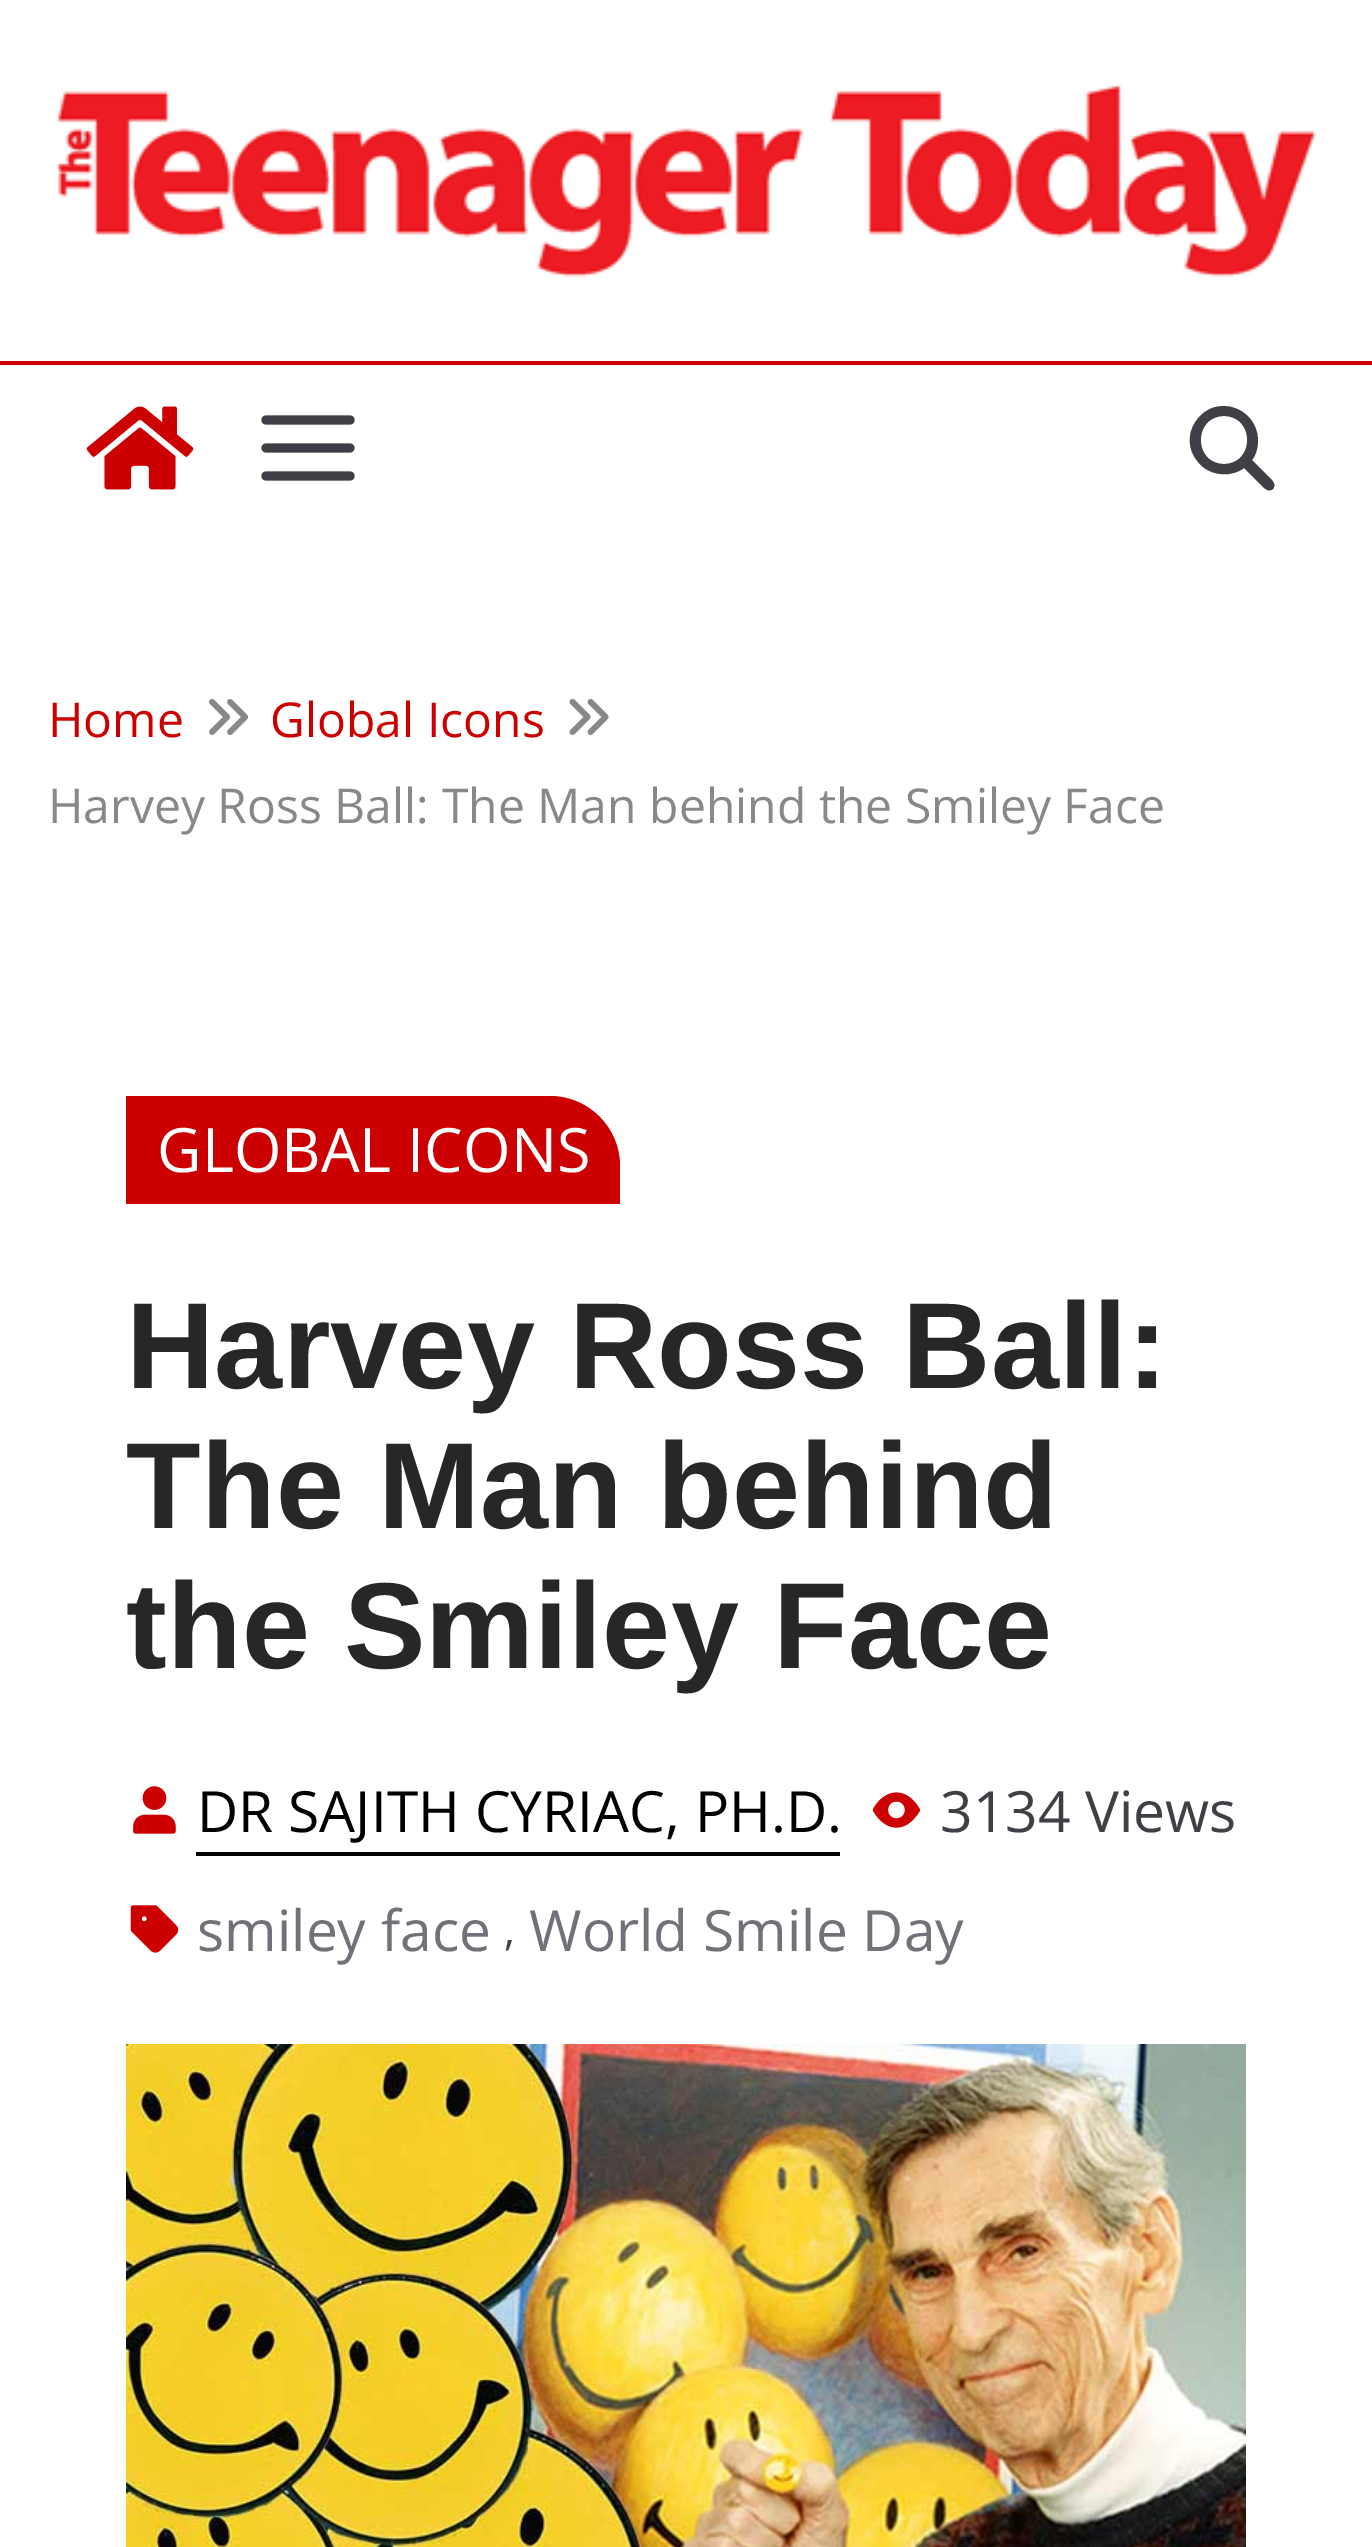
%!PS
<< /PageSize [1372 2547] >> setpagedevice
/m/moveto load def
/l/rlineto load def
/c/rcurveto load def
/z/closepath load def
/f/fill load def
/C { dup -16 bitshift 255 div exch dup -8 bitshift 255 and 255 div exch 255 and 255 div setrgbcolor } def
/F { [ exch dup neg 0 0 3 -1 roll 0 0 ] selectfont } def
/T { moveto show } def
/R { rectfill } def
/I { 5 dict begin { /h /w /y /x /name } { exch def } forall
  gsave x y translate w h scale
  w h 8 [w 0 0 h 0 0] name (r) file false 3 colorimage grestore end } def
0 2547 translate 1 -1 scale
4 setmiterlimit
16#FFFFFF C
0 0 1372 2547 R
(1.rgb) 56 84 1260 193 I
16#CC0000 C
0 361 1372 4 R
(2.rgb) 86 406 108 84 I
(3.rgb) 261 415 94 66 I
16#3F3F46 C
1258 440 m 0 8 -2 15 -6 20 c 14 14 l 2 3 12 9 7 15 c -6 5 -12 -5 -15 -7 c -14 -14 l -12 9 -30 8 -41 -1 c -7 -6 -12 -14 -13 -23 c -1 -8 1 -16 6 -23 c 19 -28 61 -14 62 19 c z 1224 464 m 31 0 31 -48 0 -48 c -31 0 -31 48 0 48 c z f
/OpenSans-Regular 48.1 F
16#CC0000 C
(Home) 48 737 T
(4.rgb) 209 699 40 36 I
(Global Icons) 270 737 T
(5.rgb) 569 698 40 37 I
16#888888 C
(Harvey Ross Ball: The Man behind the Smiley Face) 48 823 T
16#CC0000 C
126 1096 m 424 0 l 38.5 0 70 31.5 70 70 c 0 38 l -494 0 l z f
/OpenSans-Regular 61.25 F
16#FFFFFF C
(GLOBAL ICONS) 157 1172 T
/LiberationSans-Bold 122.5 F
16#27272A C
(Harvey Ross Ball:) 126 1388 T
(The Man behind) 126 1528 T
(the Smiley Face) 126 1668 T
(6.rgb) 133 1786 43 48 I
/OpenSans-Regular 56.9 F
16#000000 C
(DR SAJITH CYRIAC, PH.D.) 197 1832 T
196 1852 644 4 R
(7.rgb) 872 1792 48 36 I
16#3F3F46 C
(3134 Views) 940 1832 T
(8.rgb) 130 1905 49 48 I
16#71717A C
(smiley face) 197 1951 T
/OpenSans-Regular 42 F
16#3F3F46 C
(,) 504 1945 T
/OpenSans-Regular 56.9 F
16#71717A C
(World Smile Day) 529 1951 T
(9.rgb) 126 2044 1120 503 I
showpage
